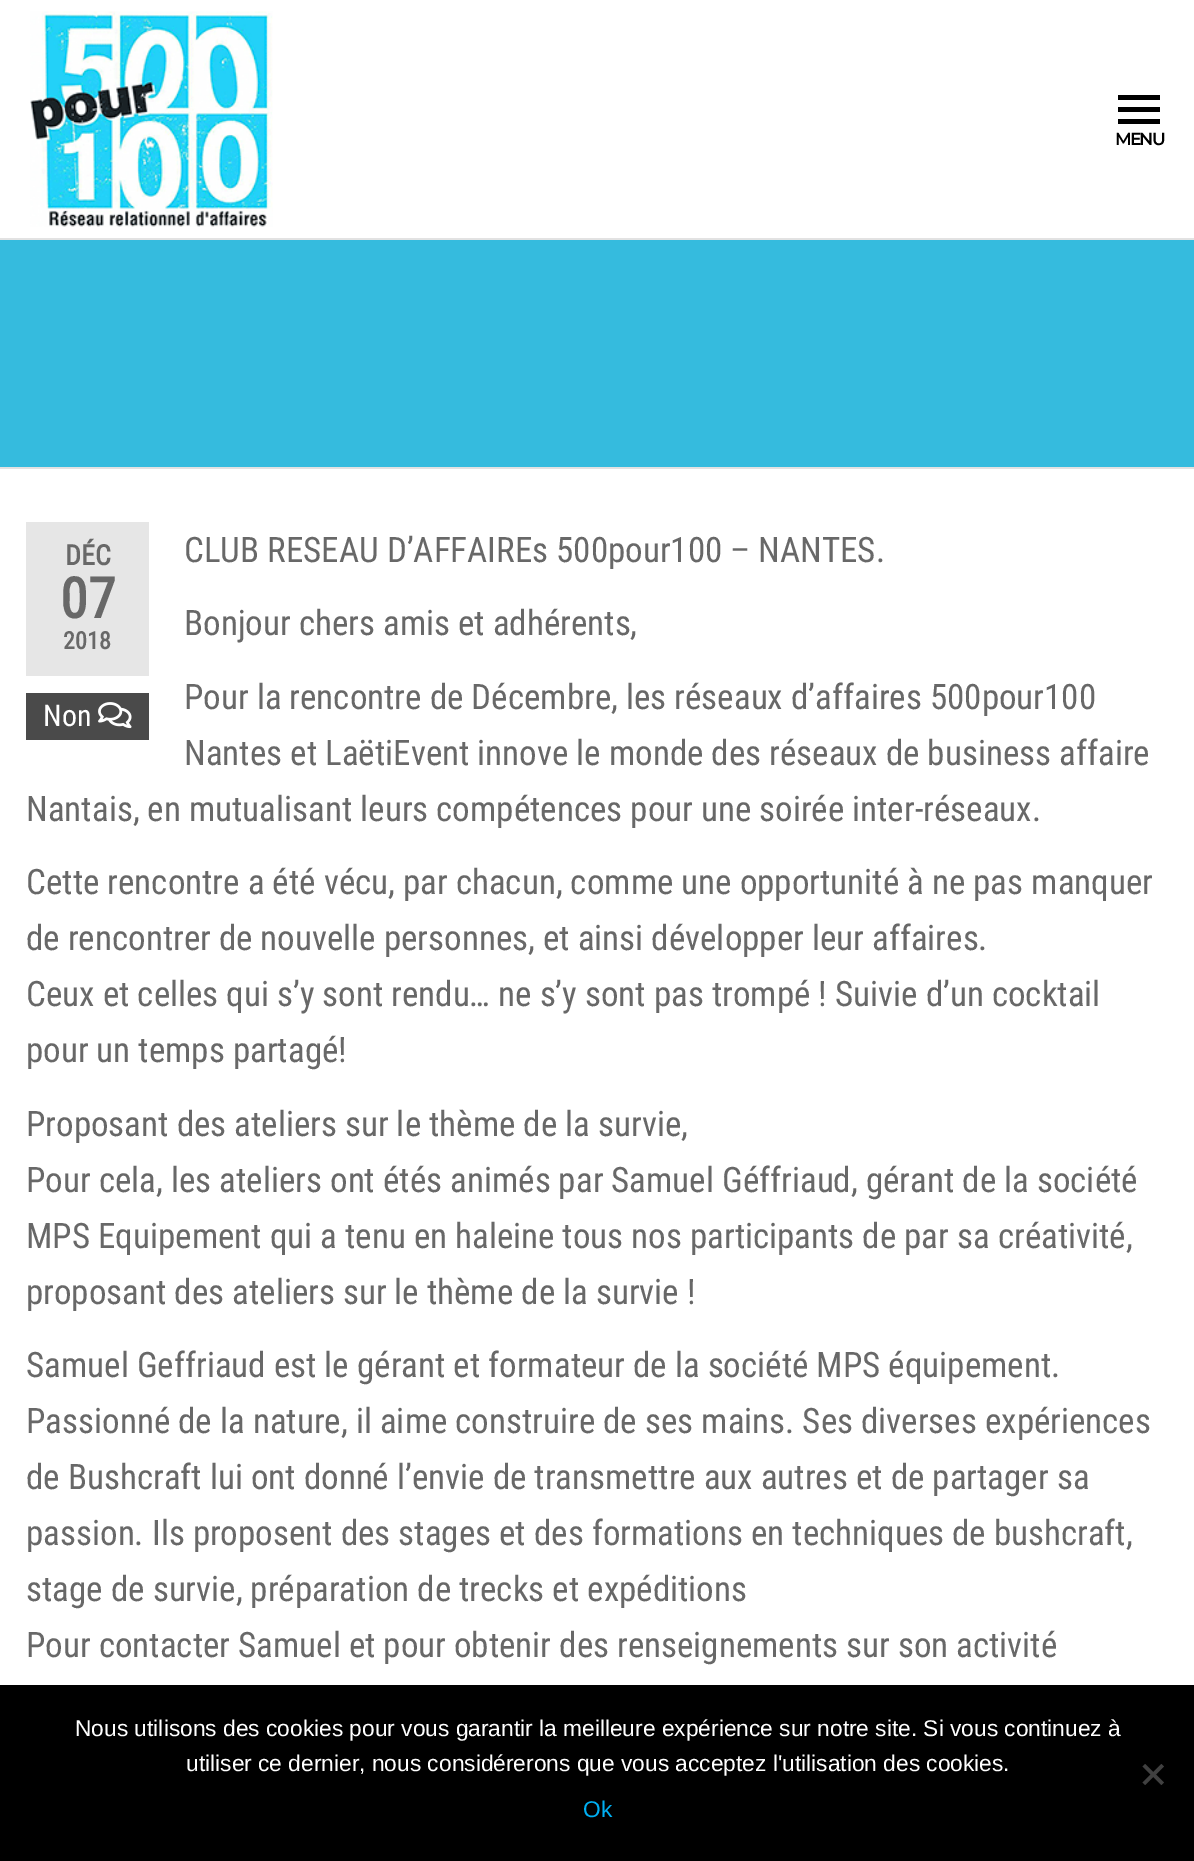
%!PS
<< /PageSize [1194 1861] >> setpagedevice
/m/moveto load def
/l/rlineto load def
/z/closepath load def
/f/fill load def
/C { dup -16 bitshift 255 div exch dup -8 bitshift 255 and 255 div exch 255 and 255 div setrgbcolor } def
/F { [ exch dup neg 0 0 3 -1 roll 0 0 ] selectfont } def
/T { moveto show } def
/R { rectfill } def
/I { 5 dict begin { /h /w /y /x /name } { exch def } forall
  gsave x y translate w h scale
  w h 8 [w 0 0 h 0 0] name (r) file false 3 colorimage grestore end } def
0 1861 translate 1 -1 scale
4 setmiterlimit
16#FFFFFF C
0 0 1194 1861 R
16#E2E2E2 C
0 238 1194 2 R
(1.rgb) 30 11 243 216 I
16#000000 C
1118 95 42 5 R
1118 107 42 5 R
1118 119 42 5 R
/Montserrat-SemiBold 17.5 F
1115 145 m -2 0 (MENU) ashow
16#E2E2E2 C
0 467 1194 2 R
16#35BBDE C
0 240 1194 227 R
16#E6E6E6 C
26 522 123 154 R
/RobotoCondensed-Bold 28 F
16#686868 C
(DÉC) 65 565 T
/RobotoCondensed-Bold 56 F
(07) 60 618 T
/RobotoCondensed-Bold 24 F
(2018) 63 649 T
16#4A4A4A C
26 693 123 47 R
/RobotoCondensed-Regular 30 F
16#FFFFFF C
(Non) 43 726 T
(2.rgb) 98 702 34 27 I
/RobotoCondensed-Regular 35 F
16#686868 C
(CLUB RESEAU D’AFFAIREs 500pour100 – NANTES.) 184 562 T
(Bonjour chers amis et adhérents,) 184 635 T
(Pour la rencontre de Décembre, les réseaux d’affaires 500pour100) 184 709 T
(Nantes et LaëtiEvent innove le monde des réseaux de business affaire) 184 765 T
(Nantais, en mutualisant leurs compétences pour une soirée inter-réseaux.) 26 821 T
(Cette rencontre a été vécu, par chacun, comme une opportunité à ne pas manquer) 26 894 T
(de rencontrer de nouvelle personnes, et ainsi développer leur affaires.) 26 950 T
(Ceux et celles qui s’y sont rendu… ne s’y sont pas trompé ! Suivie d’un cocktail) 26 1006 T
(pour un temps partagé!) 26 1062 T
(Proposant des ateliers sur le thème de la survie,) 26 1136 T
(Pour cela, les ateliers ont étés animés par Samuel Géffriaud, gérant de la société) 26 1192 T
(MPS Equipement qui a tenu en haleine tous nos participants de par sa créativité,) 26 1248 T
(proposant des ateliers sur le thème de la survie !) 26 1304 T
(Samuel Geffriaud est le gérant et formateur de la société MPS équipement.) 26 1377 T
(Passionné de la nature, il aime construire de ses mains. Ses diverses expériences) 26 1433 T
(de Bushcraft lui ont donné l’envie de transmettre aux autres et de partager sa) 26 1489 T
(passion. Ils proposent des stages et des formations en techniques de bushcraft,) 26 1545 T
(stage de survie, préparation de trecks et expéditions) 26 1601 T
(Pour contacter Samuel et pour obtenir des renseignements sur son activité) 26 1657 T
16#000000 C
0 1685 1194 176 R
/LiberationSans-Regular 22.75 F
16#FFFFFF C
(Nous utilisons des cookies pour vous garantir la meilleure expérience sur notre site. Si vous continuez à) 75 1736 T
(utiliser ce dernier, nous considérerons que vous acceptez l'utilisation des cookies.) 186 1771 T
16#404040 C
1161.5 1764 m 2.5 2.5 l -19 18.5 l -2.5 -2.5 l z f
1142.5 1766.5 m 2.5 -2.5 l 19 18.5 l -2.5 2.5 l z f
16#00AFF2 C
(Ok) 583 1817 T
showpage
